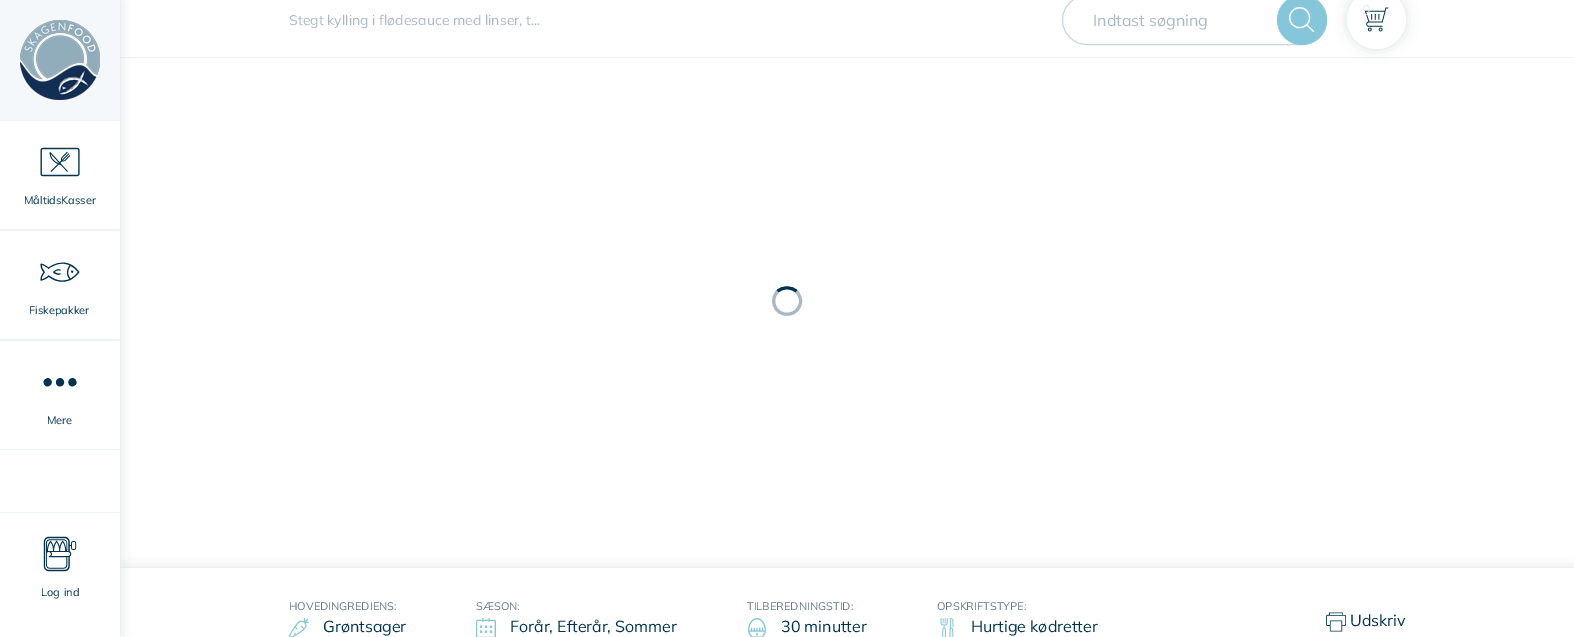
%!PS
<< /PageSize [1574 637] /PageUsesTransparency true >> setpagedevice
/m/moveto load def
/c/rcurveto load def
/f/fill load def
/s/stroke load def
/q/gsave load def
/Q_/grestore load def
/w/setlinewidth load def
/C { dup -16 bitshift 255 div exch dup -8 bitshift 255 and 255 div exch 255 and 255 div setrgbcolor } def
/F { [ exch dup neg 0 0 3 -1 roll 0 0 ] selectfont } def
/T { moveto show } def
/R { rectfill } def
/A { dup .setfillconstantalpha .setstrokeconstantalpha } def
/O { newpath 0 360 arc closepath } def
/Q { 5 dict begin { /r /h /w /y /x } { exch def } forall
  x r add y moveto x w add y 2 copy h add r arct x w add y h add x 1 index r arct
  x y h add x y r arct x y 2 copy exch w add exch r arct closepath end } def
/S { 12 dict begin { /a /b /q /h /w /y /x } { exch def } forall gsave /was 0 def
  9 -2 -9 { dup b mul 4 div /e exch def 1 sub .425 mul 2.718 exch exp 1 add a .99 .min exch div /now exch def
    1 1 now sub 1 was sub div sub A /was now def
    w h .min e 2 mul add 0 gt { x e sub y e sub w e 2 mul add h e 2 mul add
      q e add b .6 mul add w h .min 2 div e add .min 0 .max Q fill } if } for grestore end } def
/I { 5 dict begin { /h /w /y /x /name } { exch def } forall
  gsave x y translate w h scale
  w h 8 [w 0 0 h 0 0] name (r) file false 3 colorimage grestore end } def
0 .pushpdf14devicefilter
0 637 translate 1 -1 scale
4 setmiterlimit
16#FFFFFF C
0 0 1574 637 R
16#EDF4F4 C
120 57 1454 1 R
16#AAB8C3 C
0 0 120 637 0 7 .4 S
q
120 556 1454 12 rectclip
120 568 1454 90 0 7 .4 S
Q_
16#FFFFFF C
0 121 120 516 R
16#F5F8FA C
0 0 120 120 R
(1.rgb) 20 20 80 80 I
16#EDF4F4 C
0 120 120 1 R
0 229 120 2 R
(2.rgb) 40 147 40 30 I
/Mulish-Regular 11 F
16#00344E C
(MåltidsKasser) 24 204 T
16#EDF4F4 C
0 339 120 2 R
(3.rgb) 40 262 40 20 I
16#00344E C
(Fiskepakker) 29 314 T
16#EDF4F4 C
0 449 120 1 R
(4.rgb) 43 378 34 9 I
16#00344E C
(Mere) 47 424 T
16#EDF4F4 C
0 512 120 1 R
(5.rgb) 43 536 34 36 I
16#00344E C
41 596 m 1 0 32 (Log ind) widthshow
16#AAB8C3 C
1347 -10 59 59 29.5 7 .4 S
16#FFFFFF C
1376.5 19.5 29.5 O f
(6.rgb) 1364 7 25 25 I
/Mulish-Regular 14 F
16#E9EDF0 C
(0) 1362 15 T
16#AAB8C3 C
(Stegt kylling i flødesauce med linser, t...) 289 25 T
16#C9D6DF C
1062.5 -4.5 264 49 24.5 Q s
/Mulish-Regular 16 F
16#AAB8C3 C
(Indtast søgning) 1093 26 T
16#86C6DB C
1302 20 25 O f
(7.rgb) 1289 7 25 25 I
16#00344E C
3 w
777.5 291.5 m 5 -5 14 -5 19 0 c s
16#AAB8C3 C
796.5 291.5 m 2.5 2.5 4 6 4 9.5 c 0 16 -23.5 18.5 -26.5 2.5 c -1 -4 .5 -9 3.5 -12 c s
/Mulish-Regular 11 F
16#647786 C
(HOVEDINGREDIENS:) 289 610 T
(8.rgb) 289 618 20 19 I
/Mulish-Regular 16 F
16#00344E C
(Grøntsager) 323 632 T
/Mulish-Regular 11 F
16#647786 C
(SÆSON:) 476 610 T
(9.rgb) 476 618 20 19 I
/Mulish-Regular 16 F
16#00344E C
(Forår, Efterår, Sommer) 510 632 T
/Mulish-Regular 11 F
16#647786 C
(TILBEREDNINGSTID:) 747 610 T
(10.rgb) 748 618 18 19 I
/Mulish-Regular 16 F
16#00344E C
(30 minutter) 781 632 T
/Mulish-Regular 11 F
16#647786 C
(OPSKRIFTSTYPE:) 937 610 T
(11.rgb) 940 618 14 19 I
/Mulish-Regular 16 F
16#00344E C
(Hurtige kødretter) 971 632 T
(12.rgb) 1326 612 20 20 I
(Udskriv) 1350 626 T
.poppdf14devicefilter showpage
